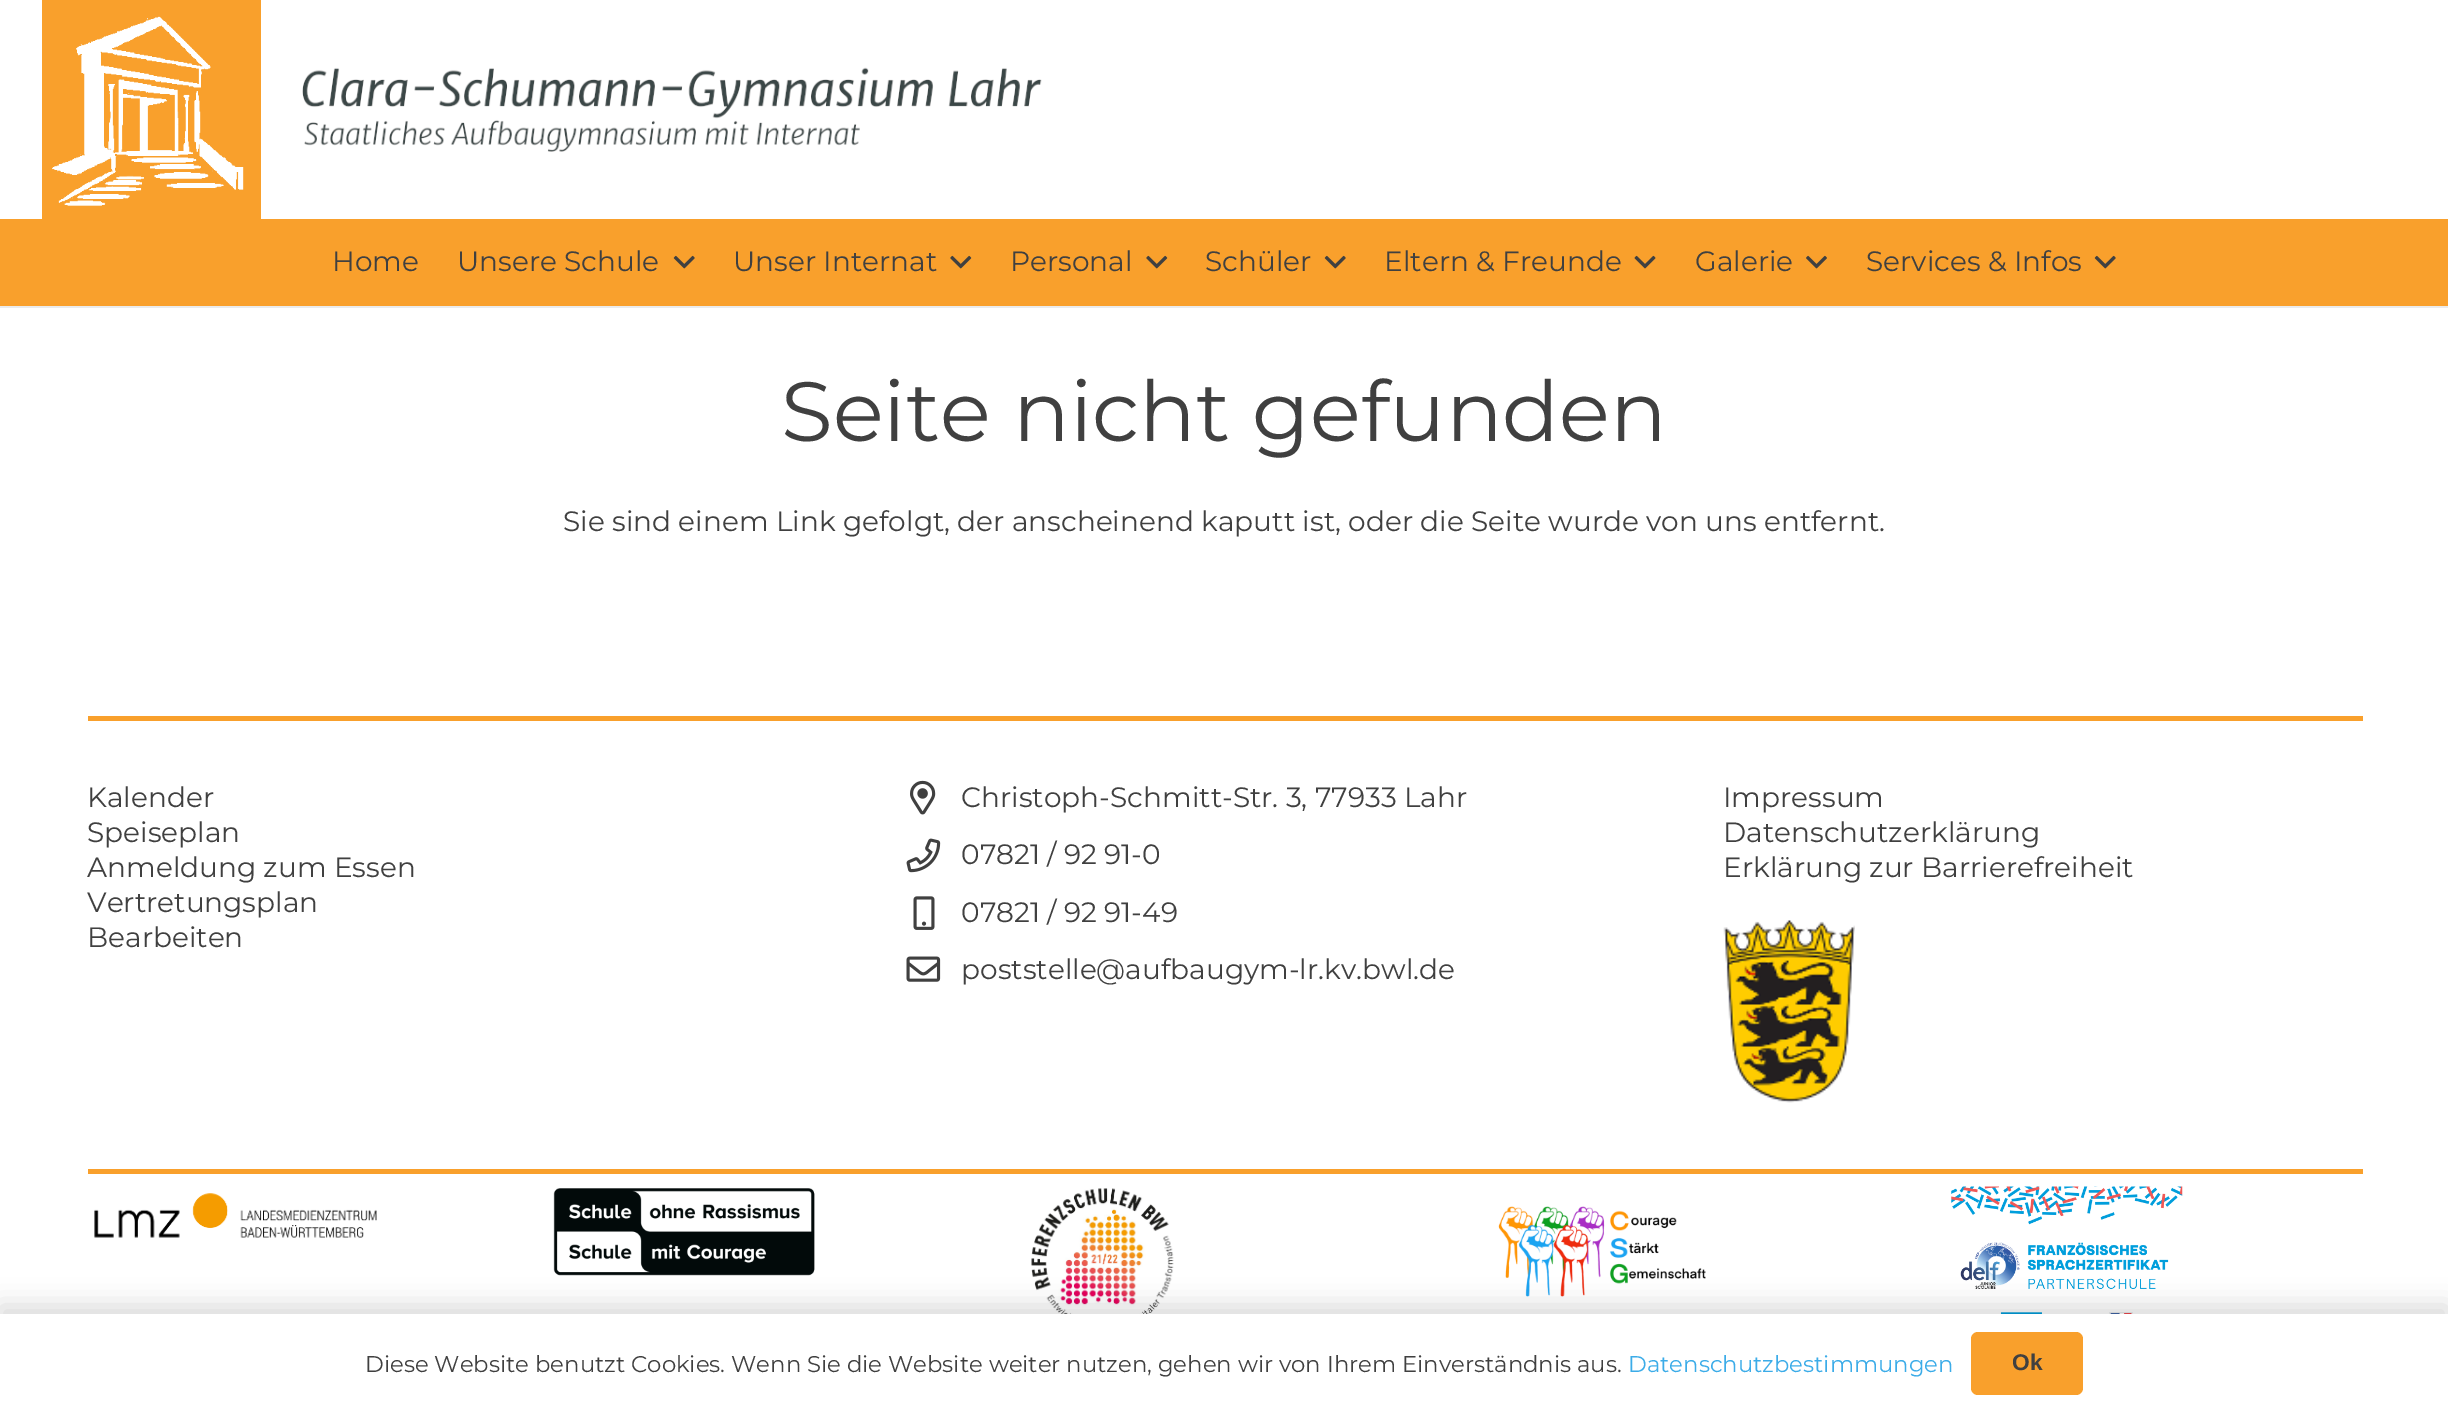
%!PS
<< /PageSize [2448 1412] /PageUsesTransparency true >> setpagedevice
/f/fill load def
/C { dup -16 bitshift 255 div exch dup -8 bitshift 255 and 255 div exch 255 and 255 div setrgbcolor } def
/F { [ exch dup neg 0 0 3 -1 roll 0 0 ] selectfont } def
/T { moveto show } def
/R { rectfill } def
/A { dup .setfillconstantalpha .setstrokeconstantalpha } def
/Q { 5 dict begin { /r /h /w /y /x } { exch def } forall
  x r add y moveto x w add y 2 copy h add r arct x w add y h add x 1 index r arct
  x y h add x y r arct x y 2 copy exch w add exch r arct closepath end } def
/S { 12 dict begin { /a /b /q /h /w /y /x } { exch def } forall gsave /was 0 def
  9 -2 -9 { dup b mul 4 div /e exch def 1 sub .425 mul 2.718 exch exp 1 add a .99 .min exch div /now exch def
    1 1 now sub 1 was sub div sub A /was now def
    w h .min e 2 mul add 0 gt { x e sub y e sub w e 2 mul add h e 2 mul add
      q e add b .6 mul add w h .min 2 div e add .min 0 .max Q fill } if } for grestore end } def
/I { 5 dict begin { /h /w /y /x /name } { exch def } forall
  gsave x y translate w h scale
  w h 8 [w 0 0 h 0 0] name (r) file false 3 colorimage grestore end } def
0 .pushpdf14devicefilter
0 1412 translate 1 -1 scale
4 setmiterlimit
16#FFFFFF C
0 0 2448 1412 R
(1.rgb) 42 0 219 219 I
(2.rgb) 302 67 740 85 I
16#EBEBEB C
0 306 2448 2 R
16#F9A02C C
0 219 2448 87 R
/Montserrat-Regular 28 F
16#404040 C
(Home) 332 271 T
(Unsere Schule) 457 271 T
(3.rgb) 673 255 22 14 I
(Unser Internat) 733 271 T
(4.rgb) 950 255 22 14 I
(Personal) 1010 271 T
(4.rgb) 1146 255 22 14 I
(Schüler) 1205 271 T
(3.rgb) 1324 255 22 14 I
(Eltern & Freunde) 1384 271 T
(5.rgb) 1634 255 22 14 I
(Galerie) 1695 271 T
(6.rgb) 1806 255 21 14 I
(Services & Infos) 1866 271 T
(3.rgb) 2094 255 22 14 I
/Montserrat-Regular 84 F
(Seite nicht gefunden) 781 441 T
/Montserrat-Regular 28 F
(Sie sind einem Link gefolgt, der anscheinend kaputt ist, oder die Seite wurde von uns entfernt.) 563 531 T
16#F9A02C C
88 716 2275 5 R
16#404040 C
(Kalender) 87 807 T
(Speiseplan) 87 842 T
(Anmeldung zum Essen) 87 877 T
(Vertretungsplan) 87 912 T
(Bearbeiten) 87 947 T
(7.rgb) 910 780 26 35 I
(Christoph-Schmitt-Str. 3, 77933 Lahr) 961 807 T
(8.rgb) 906 838 35 35 I
(07821 / 92 91-0) 961 864 T
(9.rgb) 913 896 22 34 I
(07821 / 92 91-49) 961 922 T
(10.rgb) 906 956 35 26 I
(poststelle@aufbaugym-lr.kv.bwl.de) 961 979 T
(Impressum) 1723 807 T
(Datenschutzerklärung) 1723 842 T
(Erklärung zur Barrierefreiheit) 1723 877 T
(11.rgb) 1723 920 132 183 I
16#F9A02C C
88 1169 2275 5 R
(12.rgb) 94 1193 283 45 I
(13.rgb) 553 1188 262 88 I
(14.rgb) 1031 1188 143 126 I
(15.rgb) 1498 1206 208 91 I
(16.rgb) 1951 1186 232 128 I
16#000000 C
0 1306 2448 98 0 13 .15 S
16#FFFFFF C
0 1314 2448 98 R
/Montserrat-Regular 22.75 F
16#404040 C
(Diese Website benutzt Cookies. Wenn Sie die Website weiter nutzen, gehen wir von Ihrem Einverständnis aus.) 365 1372 T
16#3CACE8 C
(Datenschutzbestimmungen) 1628 1372 T
16#F9A02C C
1971 1332 112 63 7 Q f
/LiberationSans-Bold 22.75 F
16#404040 C
(Ok) 2012 1370 T
.poppdf14devicefilter showpage
